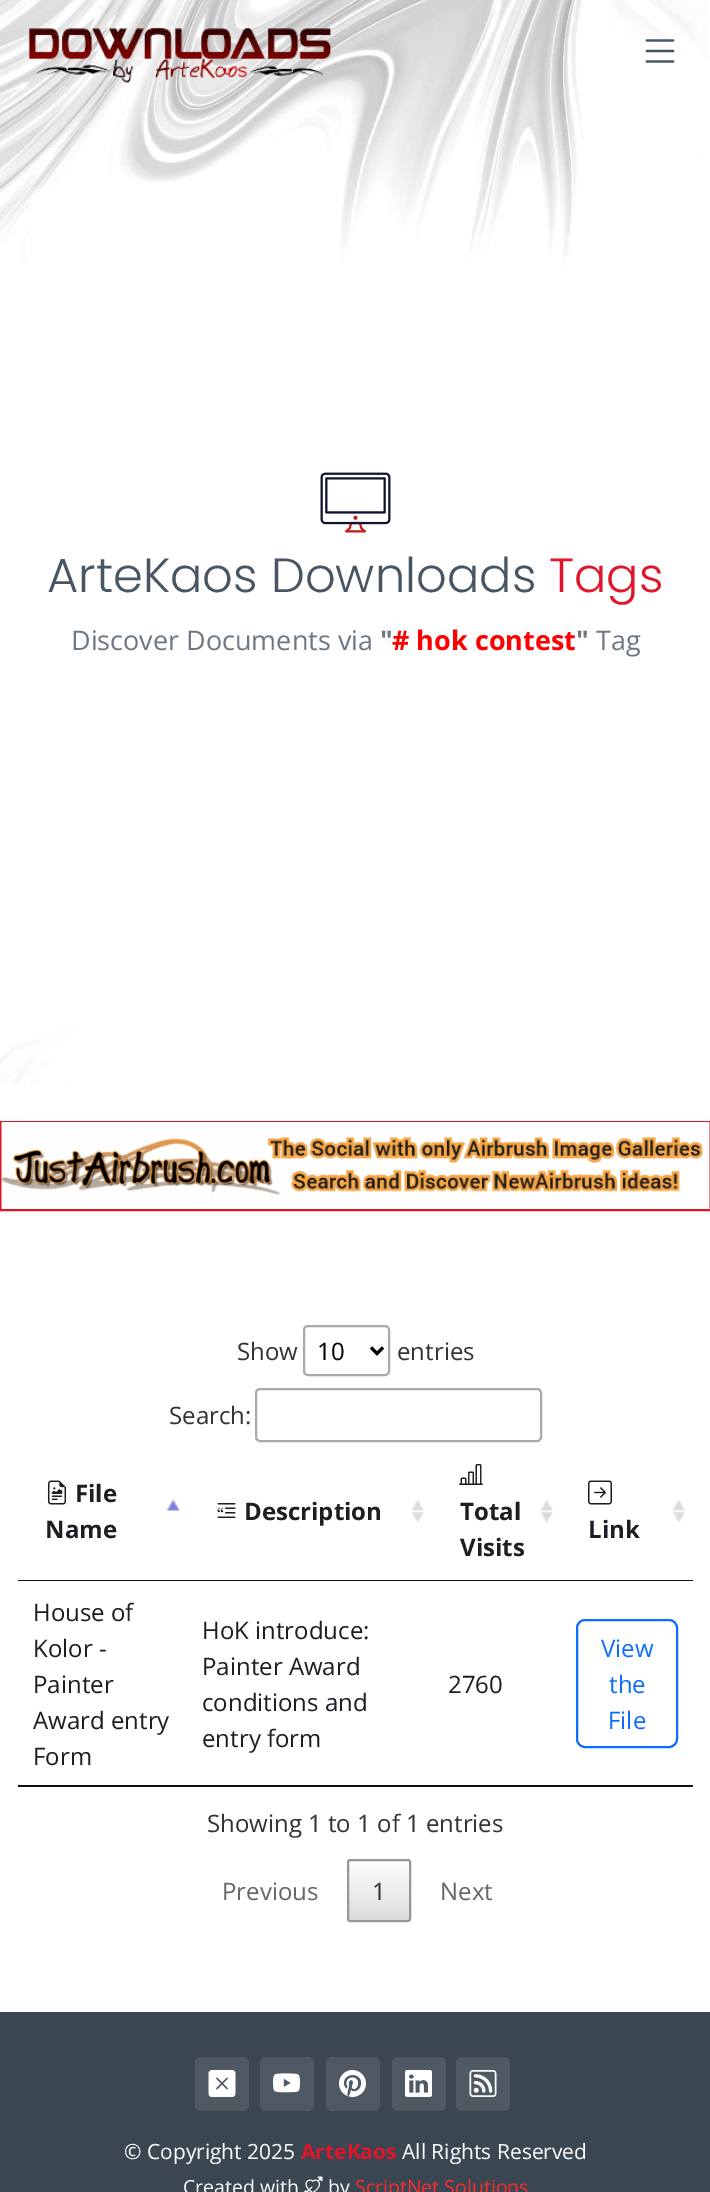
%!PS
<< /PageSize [710 2192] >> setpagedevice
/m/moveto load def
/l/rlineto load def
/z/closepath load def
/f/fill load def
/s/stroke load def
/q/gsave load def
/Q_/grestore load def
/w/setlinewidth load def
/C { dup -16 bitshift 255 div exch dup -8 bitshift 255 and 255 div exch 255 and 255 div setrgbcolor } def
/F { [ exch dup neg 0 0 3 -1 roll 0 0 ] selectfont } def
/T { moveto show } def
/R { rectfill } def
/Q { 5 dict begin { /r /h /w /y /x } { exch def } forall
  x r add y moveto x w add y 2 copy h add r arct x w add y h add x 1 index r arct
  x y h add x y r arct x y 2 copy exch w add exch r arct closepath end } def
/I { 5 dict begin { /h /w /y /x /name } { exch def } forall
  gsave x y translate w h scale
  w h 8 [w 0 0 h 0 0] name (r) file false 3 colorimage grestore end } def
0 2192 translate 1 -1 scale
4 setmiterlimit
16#FFFFFF C
0 0 710 2192 R
(3.rgb) 0 0 709 1085 I
(1.rgb) 28 27 303 56 I
(2.rgb) 645 39 30 24 I
(4.rgb) 320 472 71 61 I
/Poppins-Light 48 F
16#485664 C
(ArteKaos Downloads) 47 592 T
16#DF1529 C
(Tags) 549 592 T
/OpenSans-Regular 27 F
16#6D7883 C
(Discover Documents via) 71 650 T
/OpenSans-Bold 27 F
(") 380 650 T
16#FF0000 C
(# hok contest) 392 650 T
16#6D7883 C
(") 576 650 T
/OpenSans-Regular 27 F
(Tag) 596 650 T
16#DF1529 C
2 w
1 1122 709 88 rectstroke
(5.rgb) 1 1122 709 87 I
/OpenSans-Regular 24 F
16#333333 C
(Show) 237 1360 T
16#AAAAAA C
304 1326 85 49 4 Q s
16#000000 C
3 w
371 1347.5 m 6 6 l 6 -6 l s
(10) 317 1360 T
16#333333 C
(entries) 397 1360 T
(Search:) 169 1424 T
16#AAAAAA C
2 w
256 1389 285 52 4 Q s
16#111111 C
18 1785 675 2 R
(6.rgb) 166 1499 15 12 I
18 1580 675 1 R
(7.rgb) 47 1480 20 25 I
/OpenSans-Bold 24 F
16#1A1F24 C
(File) 75 1502 T
(Name) 45 1538 T
(8.rgb) 411 1500 14 23 I
(9.rgb) 217 1503 19 15 I
(Description) 244 1520 T
(8.rgb) 540 1500 14 23 I
(10.rgb) 459 1464 24 21 I
(Total) 460 1520 T
(Visits) 460 1556 T
(8.rgb) 672 1500 14 23 I
(11.rgb) 588 1480 24 25 I
(Link) 588 1538 T
/OpenSans-Regular 24 F
(House of) 33 1621 T
(Kolor -) 33 1657 T
(Painter) 33 1693 T
(Award entry) 33 1729 T
(Form) 33 1765 T
(HoK introduce:) 202 1639 T
(Painter Award) 202 1675 T
(conditions and) 202 1711 T
(entry form) 202 1747 T
(2760) 448 1693 T
16#0D6EFD C
577 1620 100 127 8 Q s
(View) 601 1657 T
(the) 609 1693 T
(File) 608 1729 T
16#333333 C
(Showing 1 to 1 of 1 entries) 207 1832 T
16#666666 C
(Previous) 222 1900 T
q
347 1859 64 63 3 Q clip newpath
q 347 1860 m 64 0 l 0 60 l -64 0 l z clip newpath
<< /ShadingType 2 /ColorSpace /DeviceRGB /Coords [379 1860 379 1920] /Extend [true true] /Function << /FunctionType 2 /Domain [0 1] /C0 [1 1 1] /C1 [.863 .863 .863] /N 1 >> >> shfill Q_
Q_
16#979797 C
348 1860 62 61 2 Q s
16#333333 C
(1) 372 1900 T
16#666666 C
(Next) 440 1900 T
16#3A4753 C
0 2012 710 180 R
16#4E5964 C
195 2057 54 54 6 Q f
(12.rgb) 208 2070 28 27 I
260 2057 54 54 6 Q f
(13.rgb) 273 2073 27 20 I
326 2057 54 54 6 Q f
(14.rgb) 339 2070 27 27 I
392 2057 54 54 6 Q f
(15.rgb) 405 2070 27 27 I
456 2057 54 54 6 Q f
(16.rgb) 469 2070 28 27 I
/OpenSans-Regular 21 F
16#FFFFFF C
(© Copyright 2025) 124 2159 T
/OpenSans-Bold 21 F
16#DF1529 C
(ArteKaos) 301 2159 T
/OpenSans-Regular 21 F
16#FFFFFF C
(All Rights Reserved) 402 2159 T
/OpenSans-Regular 19.5 F
(Created with) 183 2194 T
(17.rgb) 303 2176 20 16 I
(by) 328 2194 T
16#FF2B2B C
(ScriptNet Solutions) 355 2194 T
showpage
